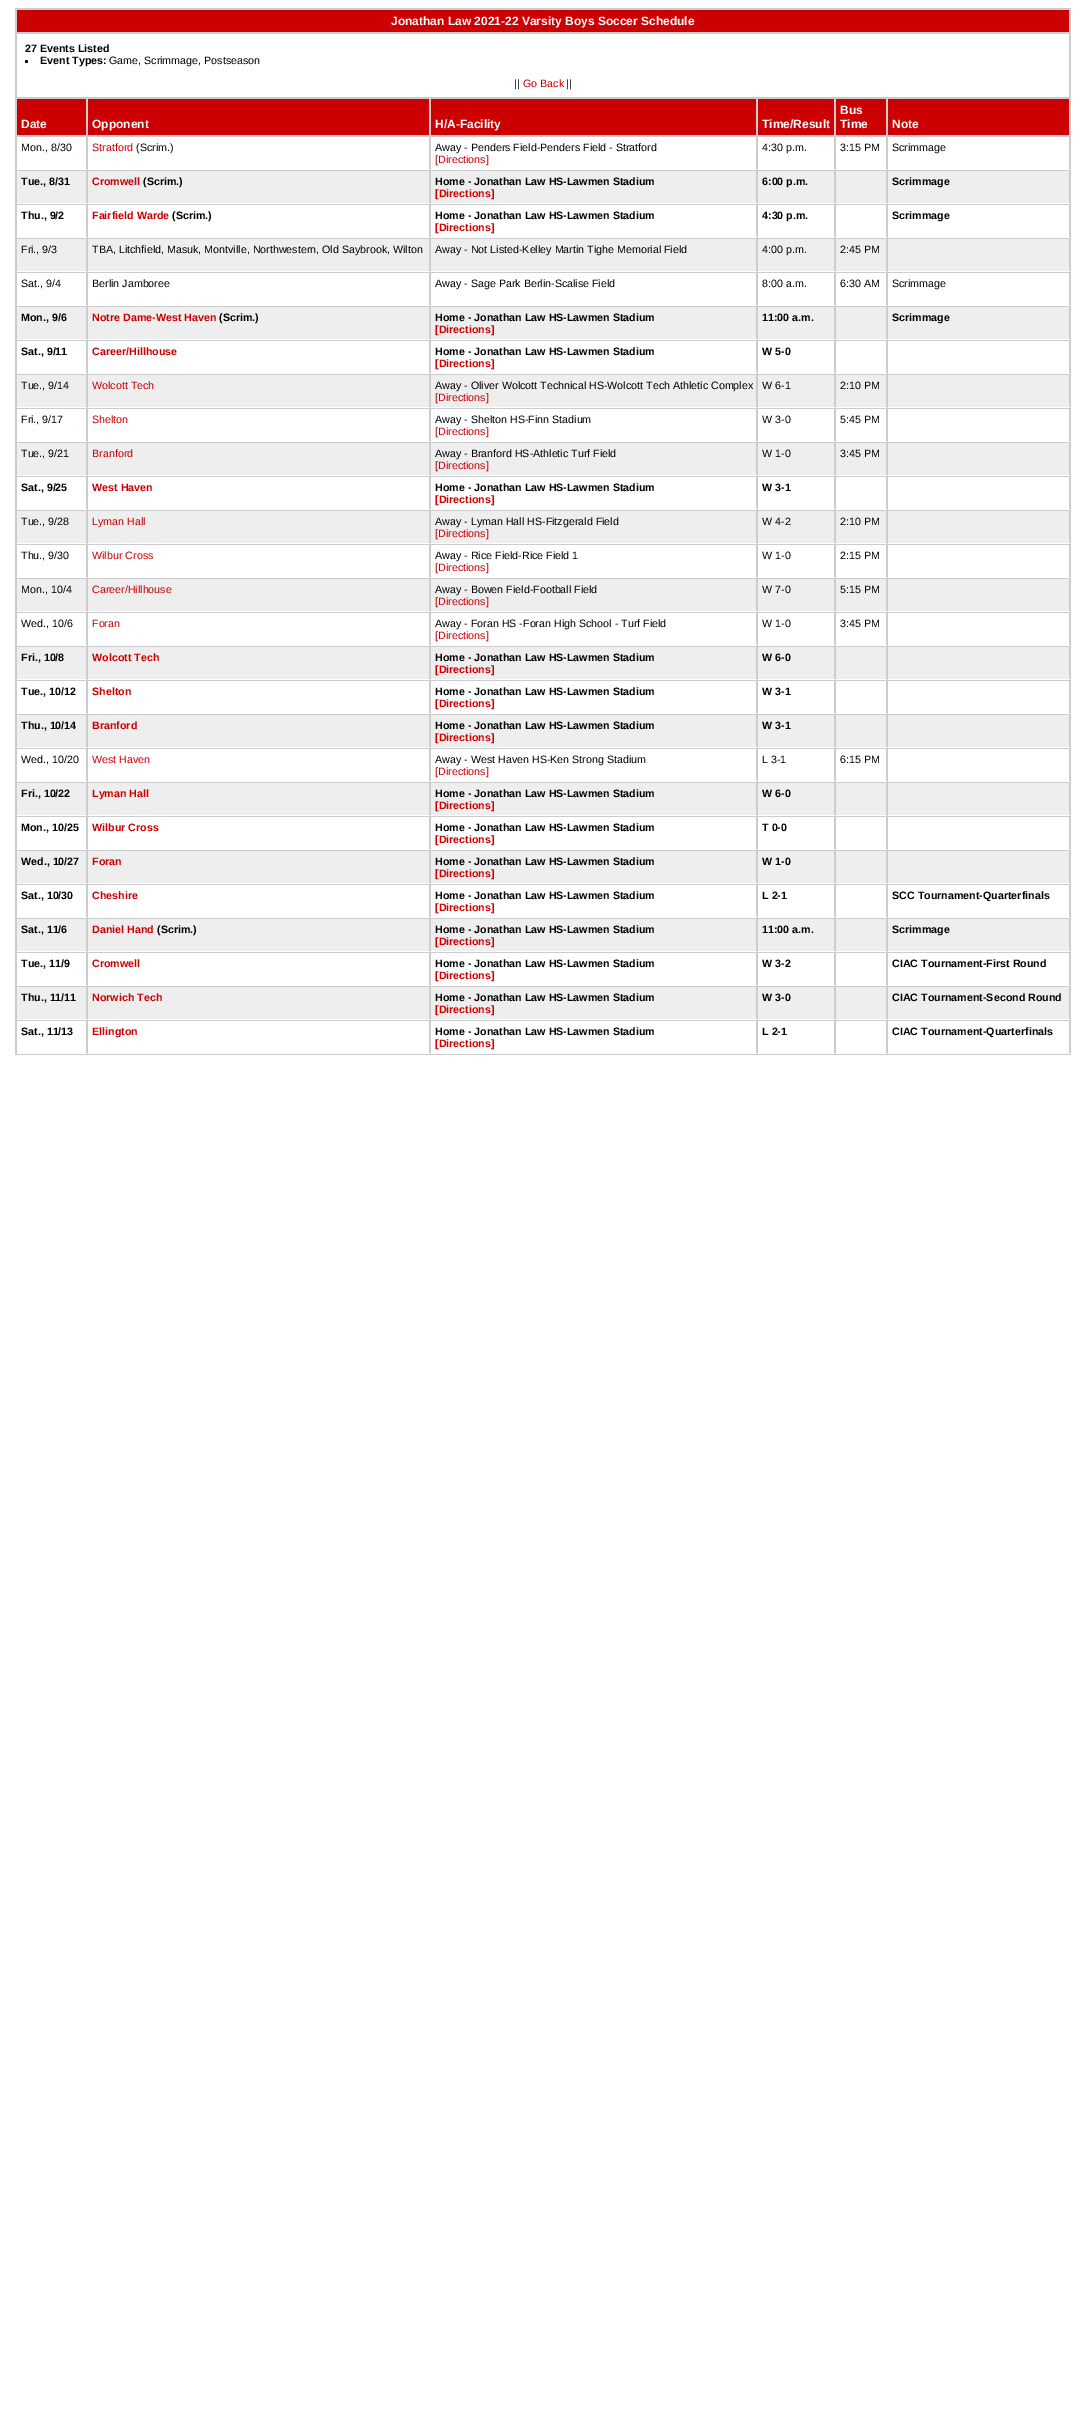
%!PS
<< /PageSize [1086 2435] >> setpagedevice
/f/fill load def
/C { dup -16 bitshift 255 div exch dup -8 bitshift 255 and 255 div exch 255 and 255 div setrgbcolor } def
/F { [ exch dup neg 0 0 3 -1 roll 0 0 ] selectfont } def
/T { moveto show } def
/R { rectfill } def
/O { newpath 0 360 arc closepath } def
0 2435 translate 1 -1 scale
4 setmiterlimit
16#FFFFFF C
0 0 1086 2435 R
16#CCCCCC C
15 8 1056 1047 R
16#CC0000 C
17 10 1052 22 R
/LiberationSans-Bold 12 F
16#FFFFFF C
(Jonathan Law 2021-22 Varsity Boys Soccer Schedule) 391 25 T
17 34 1052 63 R
/LiberationSans-Bold 10.7 F
16#000000 C
(27 Events Listed) 25 52 T
26.5 61.5 1.5 O f
(Event Types:) 40 64 T
/LiberationSans-Regular 10.7 F
(Game, Scrimmage, Postseason) 109 64 T
(||) 514 87 T
16#CC0000 C
(Go Back) 523 87 T
16#000000 C
(||) 566 87 T
16#CC0000 C
17 99 69 36 R
/LiberationSans-Bold 12 F
16#FFFFFF C
(Date) 21 128 T
16#CC0000 C
88 99 341 36 R
16#FFFFFF C
(Opponent) 92 128 T
16#CC0000 C
431 99 325 36 R
16#FFFFFF C
(H/A-Facility) 435 128 T
16#CC0000 C
758 99 76 36 R
16#FFFFFF C
(Time/Result) 762 128 T
16#CC0000 C
836 99 50 36 R
16#FFFFFF C
(Bus) 840 114 T
(Time) 840 128 T
16#CC0000 C
888 99 181 36 R
16#FFFFFF C
(Note) 892 128 T
17 137 1052 32 R
16#CCCCCC C
86 136 1 34 R
16#FFFFFF C
16 169 71 1 R
16#CCCCCC C
16 169 1 1 R
/LiberationSans-Regular 10.7 F
16#000000 C
(Mon., 8/30) 21 151 T
16#CCCCCC C
429 136 1 34 R
16#FFFFFF C
87 169 343 1 R
16#CCCCCC C
87 136 1 34 R
16#CC0000 C
(Stratford) 92 151 T
16#000000 C
(\(Scrim.\)) 136 151 T
16#CCCCCC C
756 136 1 34 R
16#FFFFFF C
430 169 327 1 R
16#CCCCCC C
430 136 1 34 R
16#000000 C
(Away - Penders Field-Penders Field - Stratford) 435 151 T
16#CC0000 C
([Directions]) 435 163 T
16#CCCCCC C
834 136 1 34 R
16#FFFFFF C
757 169 78 1 R
16#CCCCCC C
757 136 1 34 R
16#000000 C
(4:30 p.m.) 762 151 T
16#CCCCCC C
886 136 1 34 R
16#FFFFFF C
835 169 235 1 R
16#CCCCCC C
835 136 1 34 R
16#000000 C
(3:15 PM) 840 151 T
16#CCCCCC C
887 136 1 34 R
16#000000 C
(Scrimmage) 892 151 T
16#EEEEEE C
17 171 1052 32 R
16#CCCCCC C
86 170 1 34 R
16#FFFFFF C
16 203 71 1 R
16#CCCCCC C
16 203 1 1 R
/LiberationSans-Bold 10.7 F
16#000000 C
(Tue., 8/31) 21 185 T
16#CCCCCC C
429 170 1 34 R
16#FFFFFF C
87 203 343 1 R
16#CCCCCC C
87 170 1 34 R
16#CC0000 C
(Cromwell) 92 185 T
16#000000 C
(\(Scrim.\)) 143 185 T
16#CCCCCC C
756 170 1 34 R
16#FFFFFF C
430 203 327 1 R
16#CCCCCC C
430 170 1 34 R
16#000000 C
(Home - Jonathan Law HS-Lawmen Stadium) 435 185 T
16#CC0000 C
([Directions]) 435 197 T
16#CCCCCC C
834 170 1 34 R
16#FFFFFF C
757 203 78 1 R
16#CCCCCC C
757 170 1 34 R
16#000000 C
(6:00 p.m.) 762 185 T
16#CCCCCC C
886 170 1 34 R
16#FFFFFF C
835 203 235 1 R
16#CCCCCC C
835 170 1 34 R
887 170 1 34 R
16#000000 C
(Scrimmage) 892 185 T
16#FFFFFF C
17 205 1052 32 R
16#CCCCCC C
86 204 1 34 R
16#FFFFFF C
16 237 71 1 R
16#CCCCCC C
16 237 1 1 R
16#000000 C
(Thu., 9/2) 21 219 T
16#CCCCCC C
429 204 1 34 R
16#FFFFFF C
87 237 343 1 R
16#CCCCCC C
87 204 1 34 R
16#CC0000 C
(Fairfield Warde) 92 219 T
16#000000 C
(\(Scrim.\)) 172 219 T
16#CCCCCC C
756 204 1 34 R
16#FFFFFF C
430 237 327 1 R
16#CCCCCC C
430 204 1 34 R
16#000000 C
(Home - Jonathan Law HS-Lawmen Stadium) 435 219 T
16#CC0000 C
([Directions]) 435 231 T
16#CCCCCC C
834 204 1 34 R
16#FFFFFF C
757 237 78 1 R
16#CCCCCC C
757 204 1 34 R
16#000000 C
(4:30 p.m.) 762 219 T
16#CCCCCC C
886 204 1 34 R
16#FFFFFF C
835 237 235 1 R
16#CCCCCC C
835 204 1 34 R
887 204 1 34 R
16#000000 C
(Scrimmage) 892 219 T
16#EEEEEE C
17 239 1052 32 R
16#CCCCCC C
86 238 1 34 R
16#FFFFFF C
16 271 71 1 R
16#CCCCCC C
16 271 1 1 R
/LiberationSans-Regular 10.7 F
16#000000 C
(Fri., 9/3) 21 253 T
16#CCCCCC C
429 238 1 34 R
16#FFFFFF C
87 271 343 1 R
16#CCCCCC C
87 238 1 34 R
16#000000 C
(TBA, Litchfield, Masuk, Montville, Northwestern, Old Saybrook, Wilton) 92 253 T
16#CCCCCC C
756 238 1 34 R
16#FFFFFF C
430 271 327 1 R
16#CCCCCC C
430 238 1 34 R
16#000000 C
(Away - Not Listed-Kelley Martin Tighe Memorial Field) 435 253 T
16#CCCCCC C
834 238 1 34 R
16#FFFFFF C
757 271 78 1 R
16#CCCCCC C
757 238 1 34 R
16#000000 C
(4:00 p.m.) 762 253 T
16#CCCCCC C
886 238 1 34 R
16#FFFFFF C
835 271 235 1 R
16#CCCCCC C
835 238 1 34 R
16#000000 C
(2:45 PM) 840 253 T
16#CCCCCC C
887 238 1 34 R
16#FFFFFF C
17 273 1052 32 R
16#CCCCCC C
86 272 1 34 R
16#FFFFFF C
16 305 71 1 R
16#CCCCCC C
16 305 1 1 R
16#000000 C
(Sat., 9/4) 21 287 T
16#CCCCCC C
429 272 1 34 R
16#FFFFFF C
87 305 343 1 R
16#CCCCCC C
87 272 1 34 R
16#000000 C
(Berlin Jamboree) 92 287 T
16#CCCCCC C
756 272 1 34 R
16#FFFFFF C
430 305 327 1 R
16#CCCCCC C
430 272 1 34 R
16#000000 C
(Away - Sage Park Berlin-Scalise Field) 435 287 T
16#CCCCCC C
834 272 1 34 R
16#FFFFFF C
757 305 78 1 R
16#CCCCCC C
757 272 1 34 R
16#000000 C
(8:00 a.m.) 762 287 T
16#CCCCCC C
886 272 1 34 R
16#FFFFFF C
835 305 235 1 R
16#CCCCCC C
835 272 1 34 R
16#000000 C
(6:30 AM) 840 287 T
16#CCCCCC C
887 272 1 34 R
16#000000 C
(Scrimmage) 892 287 T
16#EEEEEE C
17 307 1052 32 R
16#CCCCCC C
86 306 1 34 R
16#FFFFFF C
16 339 71 1 R
16#CCCCCC C
16 339 1 1 R
/LiberationSans-Bold 10.7 F
16#000000 C
(Mon., 9/6) 21 321 T
16#CCCCCC C
429 306 1 34 R
16#FFFFFF C
87 339 343 1 R
16#CCCCCC C
87 306 1 34 R
16#CC0000 C
(Notre Dame-West Haven) 92 321 T
16#000000 C
(\(Scrim.\)) 219 321 T
16#CCCCCC C
756 306 1 34 R
16#FFFFFF C
430 339 327 1 R
16#CCCCCC C
430 306 1 34 R
16#000000 C
(Home - Jonathan Law HS-Lawmen Stadium) 435 321 T
16#CC0000 C
([Directions]) 435 333 T
16#CCCCCC C
834 306 1 34 R
16#FFFFFF C
757 339 78 1 R
16#CCCCCC C
757 306 1 34 R
16#000000 C
(11:00 a.m.) 762 321 T
16#CCCCCC C
886 306 1 34 R
16#FFFFFF C
835 339 235 1 R
16#CCCCCC C
835 306 1 34 R
887 306 1 34 R
16#000000 C
(Scrimmage) 892 321 T
16#FFFFFF C
17 341 1052 32 R
16#CCCCCC C
886 340 1 34 R
16#FFFFFF C
835 373 235 1 R
16#CCCCCC C
835 340 1 34 R
86 340 1 34 R
16#FFFFFF C
16 373 71 1 R
16#CCCCCC C
16 373 1 1 R
16#000000 C
(Sat., 9/11) 21 355 T
16#CCCCCC C
429 340 1 34 R
16#FFFFFF C
87 373 343 1 R
16#CCCCCC C
87 340 1 34 R
16#CC0000 C
(Career/Hillhouse) 92 355 T
16#CCCCCC C
756 340 1 34 R
16#FFFFFF C
430 373 327 1 R
16#CCCCCC C
430 340 1 34 R
16#000000 C
(Home - Jonathan Law HS-Lawmen Stadium) 435 355 T
16#CC0000 C
([Directions]) 435 367 T
16#CCCCCC C
834 340 1 34 R
16#FFFFFF C
757 373 78 1 R
16#CCCCCC C
757 340 1 34 R
16#000000 C
(W 5-0) 762 355 T
16#CCCCCC C
887 340 1 34 R
16#EEEEEE C
17 375 1052 32 R
16#CCCCCC C
86 374 1 34 R
16#FFFFFF C
16 407 71 1 R
16#CCCCCC C
16 407 1 1 R
/LiberationSans-Regular 10.7 F
16#000000 C
(Tue., 9/14) 21 389 T
16#CCCCCC C
429 374 1 34 R
16#FFFFFF C
87 407 343 1 R
16#CCCCCC C
87 374 1 34 R
16#CC0000 C
(Wolcott Tech) 92 389 T
16#CCCCCC C
756 374 1 34 R
16#FFFFFF C
430 407 327 1 R
16#CCCCCC C
430 374 1 34 R
16#000000 C
(Away - Oliver Wolcott Technical HS-Wolcott Tech Athletic Complex) 435 389 T
16#CC0000 C
([Directions]) 435 401 T
16#CCCCCC C
834 374 1 34 R
16#FFFFFF C
757 407 78 1 R
16#CCCCCC C
757 374 1 34 R
16#000000 C
(W 6-1) 762 389 T
16#CCCCCC C
886 374 1 34 R
16#FFFFFF C
835 407 235 1 R
16#CCCCCC C
835 374 1 34 R
16#000000 C
(2:10 PM) 840 389 T
16#CCCCCC C
887 374 1 34 R
16#FFFFFF C
17 409 1052 32 R
16#CCCCCC C
86 408 1 34 R
16#FFFFFF C
16 441 71 1 R
16#CCCCCC C
16 441 1 1 R
16#000000 C
(Fri., 9/17) 21 423 T
16#CCCCCC C
429 408 1 34 R
16#FFFFFF C
87 441 343 1 R
16#CCCCCC C
87 408 1 34 R
16#CC0000 C
(Shelton) 92 423 T
16#CCCCCC C
756 408 1 34 R
16#FFFFFF C
430 441 327 1 R
16#CCCCCC C
430 408 1 34 R
16#000000 C
(Away - Shelton HS-Finn Stadium) 435 423 T
16#CC0000 C
([Directions]) 435 435 T
16#CCCCCC C
834 408 1 34 R
16#FFFFFF C
757 441 78 1 R
16#CCCCCC C
757 408 1 34 R
16#000000 C
(W 3-0) 762 423 T
16#CCCCCC C
886 408 1 34 R
16#FFFFFF C
835 441 235 1 R
16#CCCCCC C
835 408 1 34 R
16#000000 C
(5:45 PM) 840 423 T
16#CCCCCC C
887 408 1 34 R
16#EEEEEE C
17 443 1052 32 R
16#CCCCCC C
86 442 1 34 R
16#FFFFFF C
16 475 71 1 R
16#CCCCCC C
16 475 1 1 R
16#000000 C
(Tue., 9/21) 21 457 T
16#CCCCCC C
429 442 1 34 R
16#FFFFFF C
87 475 343 1 R
16#CCCCCC C
87 442 1 34 R
16#CC0000 C
(Branford) 92 457 T
16#CCCCCC C
756 442 1 34 R
16#FFFFFF C
430 475 327 1 R
16#CCCCCC C
430 442 1 34 R
16#000000 C
(Away - Branford HS-Athletic Turf Field) 435 457 T
16#CC0000 C
([Directions]) 435 469 T
16#CCCCCC C
834 442 1 34 R
16#FFFFFF C
757 475 78 1 R
16#CCCCCC C
757 442 1 34 R
16#000000 C
(W 1-0) 762 457 T
16#CCCCCC C
886 442 1 34 R
16#FFFFFF C
835 475 235 1 R
16#CCCCCC C
835 442 1 34 R
16#000000 C
(3:45 PM) 840 457 T
16#CCCCCC C
887 442 1 34 R
16#FFFFFF C
17 477 1052 32 R
16#CCCCCC C
886 476 1 34 R
16#FFFFFF C
835 509 235 1 R
16#CCCCCC C
835 476 1 34 R
86 476 1 34 R
16#FFFFFF C
16 509 71 1 R
16#CCCCCC C
16 509 1 1 R
/LiberationSans-Bold 10.7 F
16#000000 C
(Sat., 9/25) 21 491 T
16#CCCCCC C
429 476 1 34 R
16#FFFFFF C
87 509 343 1 R
16#CCCCCC C
87 476 1 34 R
16#CC0000 C
(West Haven) 92 491 T
16#CCCCCC C
756 476 1 34 R
16#FFFFFF C
430 509 327 1 R
16#CCCCCC C
430 476 1 34 R
16#000000 C
(Home - Jonathan Law HS-Lawmen Stadium) 435 491 T
16#CC0000 C
([Directions]) 435 503 T
16#CCCCCC C
834 476 1 34 R
16#FFFFFF C
757 509 78 1 R
16#CCCCCC C
757 476 1 34 R
16#000000 C
(W 3-1) 762 491 T
16#CCCCCC C
887 476 1 34 R
16#EEEEEE C
17 511 1052 32 R
16#CCCCCC C
86 510 1 34 R
16#FFFFFF C
16 543 71 1 R
16#CCCCCC C
16 543 1 1 R
/LiberationSans-Regular 10.7 F
16#000000 C
(Tue., 9/28) 21 525 T
16#CCCCCC C
429 510 1 34 R
16#FFFFFF C
87 543 343 1 R
16#CCCCCC C
87 510 1 34 R
16#CC0000 C
(Lyman Hall) 92 525 T
16#CCCCCC C
756 510 1 34 R
16#FFFFFF C
430 543 327 1 R
16#CCCCCC C
430 510 1 34 R
16#000000 C
(Away - Lyman Hall HS-Fitzgerald Field) 435 525 T
16#CC0000 C
([Directions]) 435 537 T
16#CCCCCC C
834 510 1 34 R
16#FFFFFF C
757 543 78 1 R
16#CCCCCC C
757 510 1 34 R
16#000000 C
(W 4-2) 762 525 T
16#CCCCCC C
886 510 1 34 R
16#FFFFFF C
835 543 235 1 R
16#CCCCCC C
835 510 1 34 R
16#000000 C
(2:10 PM) 840 525 T
16#CCCCCC C
887 510 1 34 R
16#FFFFFF C
17 545 1052 32 R
16#CCCCCC C
86 544 1 34 R
16#FFFFFF C
16 577 71 1 R
16#CCCCCC C
16 577 1 1 R
16#000000 C
(Thu., 9/30) 21 559 T
16#CCCCCC C
429 544 1 34 R
16#FFFFFF C
87 577 343 1 R
16#CCCCCC C
87 544 1 34 R
16#CC0000 C
(Wilbur Cross) 92 559 T
16#CCCCCC C
756 544 1 34 R
16#FFFFFF C
430 577 327 1 R
16#CCCCCC C
430 544 1 34 R
16#000000 C
(Away - Rice Field-Rice Field 1) 435 559 T
16#CC0000 C
([Directions]) 435 571 T
16#CCCCCC C
834 544 1 34 R
16#FFFFFF C
757 577 78 1 R
16#CCCCCC C
757 544 1 34 R
16#000000 C
(W 1-0) 762 559 T
16#CCCCCC C
886 544 1 34 R
16#FFFFFF C
835 577 235 1 R
16#CCCCCC C
835 544 1 34 R
16#000000 C
(2:15 PM) 840 559 T
16#CCCCCC C
887 544 1 34 R
16#EEEEEE C
17 579 1052 32 R
16#CCCCCC C
86 578 1 34 R
16#FFFFFF C
16 611 71 1 R
16#CCCCCC C
16 611 1 1 R
16#000000 C
(Mon., 10/4) 21 593 T
16#CCCCCC C
429 578 1 34 R
16#FFFFFF C
87 611 343 1 R
16#CCCCCC C
87 578 1 34 R
16#CC0000 C
(Career/Hillhouse) 92 593 T
16#CCCCCC C
756 578 1 34 R
16#FFFFFF C
430 611 327 1 R
16#CCCCCC C
430 578 1 34 R
16#000000 C
(Away - Bowen Field-Football Field) 435 593 T
16#CC0000 C
([Directions]) 435 605 T
16#CCCCCC C
834 578 1 34 R
16#FFFFFF C
757 611 78 1 R
16#CCCCCC C
757 578 1 34 R
16#000000 C
(W 7-0) 762 593 T
16#CCCCCC C
886 578 1 34 R
16#FFFFFF C
835 611 235 1 R
16#CCCCCC C
835 578 1 34 R
16#000000 C
(5:15 PM) 840 593 T
16#CCCCCC C
887 578 1 34 R
16#FFFFFF C
17 613 1052 32 R
16#CCCCCC C
86 612 1 34 R
16#FFFFFF C
16 645 71 1 R
16#CCCCCC C
16 645 1 1 R
16#000000 C
(Wed., 10/6) 21 627 T
16#CCCCCC C
429 612 1 34 R
16#FFFFFF C
87 645 343 1 R
16#CCCCCC C
87 612 1 34 R
16#CC0000 C
(Foran) 92 627 T
16#CCCCCC C
756 612 1 34 R
16#FFFFFF C
430 645 327 1 R
16#CCCCCC C
430 612 1 34 R
16#000000 C
(Away - Foran HS -Foran High School - Turf Field) 435 627 T
16#CC0000 C
([Directions]) 435 639 T
16#CCCCCC C
834 612 1 34 R
16#FFFFFF C
757 645 78 1 R
16#CCCCCC C
757 612 1 34 R
16#000000 C
(W 1-0) 762 627 T
16#CCCCCC C
886 612 1 34 R
16#FFFFFF C
835 645 235 1 R
16#CCCCCC C
835 612 1 34 R
16#000000 C
(3:45 PM) 840 627 T
16#CCCCCC C
887 612 1 34 R
16#EEEEEE C
17 647 1052 32 R
16#CCCCCC C
886 646 1 34 R
16#FFFFFF C
835 679 235 1 R
16#CCCCCC C
835 646 1 34 R
86 646 1 34 R
16#FFFFFF C
16 679 71 1 R
16#CCCCCC C
16 679 1 1 R
/LiberationSans-Bold 10.7 F
16#000000 C
(Fri., 10/8) 21 661 T
16#CCCCCC C
429 646 1 34 R
16#FFFFFF C
87 679 343 1 R
16#CCCCCC C
87 646 1 34 R
16#CC0000 C
(Wolcott Tech) 92 661 T
16#CCCCCC C
756 646 1 34 R
16#FFFFFF C
430 679 327 1 R
16#CCCCCC C
430 646 1 34 R
16#000000 C
(Home - Jonathan Law HS-Lawmen Stadium) 435 661 T
16#CC0000 C
([Directions]) 435 673 T
16#CCCCCC C
834 646 1 34 R
16#FFFFFF C
757 679 78 1 R
16#CCCCCC C
757 646 1 34 R
16#000000 C
(W 6-0) 762 661 T
16#CCCCCC C
887 646 1 34 R
16#FFFFFF C
17 681 1052 32 R
16#CCCCCC C
886 680 1 34 R
16#FFFFFF C
835 713 235 1 R
16#CCCCCC C
835 680 1 34 R
86 680 1 34 R
16#FFFFFF C
16 713 71 1 R
16#CCCCCC C
16 713 1 1 R
16#000000 C
(Tue., 10/12) 21 695 T
16#CCCCCC C
429 680 1 34 R
16#FFFFFF C
87 713 343 1 R
16#CCCCCC C
87 680 1 34 R
16#CC0000 C
(Shelton) 92 695 T
16#CCCCCC C
756 680 1 34 R
16#FFFFFF C
430 713 327 1 R
16#CCCCCC C
430 680 1 34 R
16#000000 C
(Home - Jonathan Law HS-Lawmen Stadium) 435 695 T
16#CC0000 C
([Directions]) 435 707 T
16#CCCCCC C
834 680 1 34 R
16#FFFFFF C
757 713 78 1 R
16#CCCCCC C
757 680 1 34 R
16#000000 C
(W 3-1) 762 695 T
16#CCCCCC C
887 680 1 34 R
16#EEEEEE C
17 715 1052 32 R
16#CCCCCC C
886 714 1 34 R
16#FFFFFF C
835 747 235 1 R
16#CCCCCC C
835 714 1 34 R
86 714 1 34 R
16#FFFFFF C
16 747 71 1 R
16#CCCCCC C
16 747 1 1 R
16#000000 C
(Thu., 10/14) 21 729 T
16#CCCCCC C
429 714 1 34 R
16#FFFFFF C
87 747 343 1 R
16#CCCCCC C
87 714 1 34 R
16#CC0000 C
(Branford) 92 729 T
16#CCCCCC C
756 714 1 34 R
16#FFFFFF C
430 747 327 1 R
16#CCCCCC C
430 714 1 34 R
16#000000 C
(Home - Jonathan Law HS-Lawmen Stadium) 435 729 T
16#CC0000 C
([Directions]) 435 741 T
16#CCCCCC C
834 714 1 34 R
16#FFFFFF C
757 747 78 1 R
16#CCCCCC C
757 714 1 34 R
16#000000 C
(W 3-1) 762 729 T
16#CCCCCC C
887 714 1 34 R
16#FFFFFF C
17 749 1052 32 R
16#CCCCCC C
86 748 1 34 R
16#FFFFFF C
16 781 71 1 R
16#CCCCCC C
16 781 1 1 R
/LiberationSans-Regular 10.7 F
16#000000 C
(Wed., 10/20) 21 763 T
16#CCCCCC C
429 748 1 34 R
16#FFFFFF C
87 781 343 1 R
16#CCCCCC C
87 748 1 34 R
16#CC0000 C
(West Haven) 92 763 T
16#CCCCCC C
756 748 1 34 R
16#FFFFFF C
430 781 327 1 R
16#CCCCCC C
430 748 1 34 R
16#000000 C
(Away - West Haven HS-Ken Strong Stadium) 435 763 T
16#CC0000 C
([Directions]) 435 775 T
16#CCCCCC C
834 748 1 34 R
16#FFFFFF C
757 781 78 1 R
16#CCCCCC C
757 748 1 34 R
16#000000 C
(L 3-1) 762 763 T
16#CCCCCC C
886 748 1 34 R
16#FFFFFF C
835 781 235 1 R
16#CCCCCC C
835 748 1 34 R
16#000000 C
(6:15 PM) 840 763 T
16#CCCCCC C
887 748 1 34 R
16#EEEEEE C
17 783 1052 32 R
16#CCCCCC C
886 782 1 34 R
16#FFFFFF C
835 815 235 1 R
16#CCCCCC C
835 782 1 34 R
86 782 1 34 R
16#FFFFFF C
16 815 71 1 R
16#CCCCCC C
16 815 1 1 R
/LiberationSans-Bold 10.7 F
16#000000 C
(Fri., 10/22) 21 797 T
16#CCCCCC C
429 782 1 34 R
16#FFFFFF C
87 815 343 1 R
16#CCCCCC C
87 782 1 34 R
16#CC0000 C
(Lyman Hall) 92 797 T
16#CCCCCC C
756 782 1 34 R
16#FFFFFF C
430 815 327 1 R
16#CCCCCC C
430 782 1 34 R
16#000000 C
(Home - Jonathan Law HS-Lawmen Stadium) 435 797 T
16#CC0000 C
([Directions]) 435 809 T
16#CCCCCC C
834 782 1 34 R
16#FFFFFF C
757 815 78 1 R
16#CCCCCC C
757 782 1 34 R
16#000000 C
(W 6-0) 762 797 T
16#CCCCCC C
887 782 1 34 R
16#FFFFFF C
17 817 1052 32 R
16#CCCCCC C
886 816 1 34 R
16#FFFFFF C
835 849 235 1 R
16#CCCCCC C
835 816 1 34 R
86 816 1 34 R
16#FFFFFF C
16 849 71 1 R
16#CCCCCC C
16 849 1 1 R
16#000000 C
(Mon., 10/25) 21 831 T
16#CCCCCC C
429 816 1 34 R
16#FFFFFF C
87 849 343 1 R
16#CCCCCC C
87 816 1 34 R
16#CC0000 C
(Wilbur Cross) 92 831 T
16#CCCCCC C
756 816 1 34 R
16#FFFFFF C
430 849 327 1 R
16#CCCCCC C
430 816 1 34 R
16#000000 C
(Home - Jonathan Law HS-Lawmen Stadium) 435 831 T
16#CC0000 C
([Directions]) 435 843 T
16#CCCCCC C
834 816 1 34 R
16#FFFFFF C
757 849 78 1 R
16#CCCCCC C
757 816 1 34 R
16#000000 C
(T 0-0) 762 831 T
16#CCCCCC C
887 816 1 34 R
16#EEEEEE C
17 851 1052 32 R
16#CCCCCC C
886 850 1 34 R
16#FFFFFF C
835 883 235 1 R
16#CCCCCC C
835 850 1 34 R
86 850 1 34 R
16#FFFFFF C
16 883 71 1 R
16#CCCCCC C
16 883 1 1 R
16#000000 C
(Wed., 10/27) 21 865 T
16#CCCCCC C
429 850 1 34 R
16#FFFFFF C
87 883 343 1 R
16#CCCCCC C
87 850 1 34 R
16#CC0000 C
(Foran) 92 865 T
16#CCCCCC C
756 850 1 34 R
16#FFFFFF C
430 883 327 1 R
16#CCCCCC C
430 850 1 34 R
16#000000 C
(Home - Jonathan Law HS-Lawmen Stadium) 435 865 T
16#CC0000 C
([Directions]) 435 877 T
16#CCCCCC C
834 850 1 34 R
16#FFFFFF C
757 883 78 1 R
16#CCCCCC C
757 850 1 34 R
16#000000 C
(W 1-0) 762 865 T
16#CCCCCC C
887 850 1 34 R
16#FFFFFF C
17 885 1052 32 R
16#CCCCCC C
86 884 1 34 R
16#FFFFFF C
16 917 71 1 R
16#CCCCCC C
16 917 1 1 R
16#000000 C
(Sat., 10/30) 21 899 T
16#CCCCCC C
429 884 1 34 R
16#FFFFFF C
87 917 343 1 R
16#CCCCCC C
87 884 1 34 R
16#CC0000 C
(Cheshire) 92 899 T
16#CCCCCC C
756 884 1 34 R
16#FFFFFF C
430 917 327 1 R
16#CCCCCC C
430 884 1 34 R
16#000000 C
(Home - Jonathan Law HS-Lawmen Stadium) 435 899 T
16#CC0000 C
([Directions]) 435 911 T
16#CCCCCC C
834 884 1 34 R
16#FFFFFF C
757 917 78 1 R
16#CCCCCC C
757 884 1 34 R
16#000000 C
(L 2-1) 762 899 T
16#CCCCCC C
886 884 1 34 R
16#FFFFFF C
835 917 235 1 R
16#CCCCCC C
835 884 1 34 R
887 884 1 34 R
16#000000 C
(SCC Tournament-Quarterfinals) 892 899 T
16#EEEEEE C
17 919 1052 32 R
16#CCCCCC C
86 918 1 34 R
16#FFFFFF C
16 951 71 1 R
16#CCCCCC C
16 951 1 1 R
16#000000 C
(Sat., 11/6) 21 933 T
16#CCCCCC C
429 918 1 34 R
16#FFFFFF C
87 951 343 1 R
16#CCCCCC C
87 918 1 34 R
16#CC0000 C
(Daniel Hand) 92 933 T
16#000000 C
(\(Scrim.\)) 157 933 T
16#CCCCCC C
756 918 1 34 R
16#FFFFFF C
430 951 327 1 R
16#CCCCCC C
430 918 1 34 R
16#000000 C
(Home - Jonathan Law HS-Lawmen Stadium) 435 933 T
16#CC0000 C
([Directions]) 435 945 T
16#CCCCCC C
834 918 1 34 R
16#FFFFFF C
757 951 78 1 R
16#CCCCCC C
757 918 1 34 R
16#000000 C
(11:00 a.m.) 762 933 T
16#CCCCCC C
886 918 1 34 R
16#FFFFFF C
835 951 235 1 R
16#CCCCCC C
835 918 1 34 R
887 918 1 34 R
16#000000 C
(Scrimmage) 892 933 T
16#FFFFFF C
17 953 1052 32 R
16#CCCCCC C
86 952 1 34 R
16#FFFFFF C
16 985 71 1 R
16#CCCCCC C
16 985 1 1 R
16#000000 C
(Tue., 11/9) 21 967 T
16#CCCCCC C
429 952 1 34 R
16#FFFFFF C
87 985 343 1 R
16#CCCCCC C
87 952 1 34 R
16#CC0000 C
(Cromwell) 92 967 T
16#CCCCCC C
756 952 1 34 R
16#FFFFFF C
430 985 327 1 R
16#CCCCCC C
430 952 1 34 R
16#000000 C
(Home - Jonathan Law HS-Lawmen Stadium) 435 967 T
16#CC0000 C
([Directions]) 435 979 T
16#CCCCCC C
834 952 1 34 R
16#FFFFFF C
757 985 78 1 R
16#CCCCCC C
757 952 1 34 R
16#000000 C
(W 3-2) 762 967 T
16#CCCCCC C
886 952 1 34 R
16#FFFFFF C
835 985 235 1 R
16#CCCCCC C
835 952 1 34 R
887 952 1 34 R
16#000000 C
(CIAC Tournament-First Round) 892 967 T
16#EEEEEE C
17 987 1052 32 R
16#CCCCCC C
86 986 1 34 R
16#FFFFFF C
16 1019 71 1 R
16#CCCCCC C
16 1019 1 1 R
16#000000 C
(Thu., 11/11) 21 1001 T
16#CCCCCC C
429 986 1 34 R
16#FFFFFF C
87 1019 343 1 R
16#CCCCCC C
87 986 1 34 R
16#CC0000 C
(Norwich Tech) 92 1001 T
16#CCCCCC C
756 986 1 34 R
16#FFFFFF C
430 1019 327 1 R
16#CCCCCC C
430 986 1 34 R
16#000000 C
(Home - Jonathan Law HS-Lawmen Stadium) 435 1001 T
16#CC0000 C
([Directions]) 435 1013 T
16#CCCCCC C
834 986 1 34 R
16#FFFFFF C
757 1019 78 1 R
16#CCCCCC C
757 986 1 34 R
16#000000 C
(W 3-0) 762 1001 T
16#CCCCCC C
886 986 1 34 R
16#FFFFFF C
835 1019 235 1 R
16#CCCCCC C
835 986 1 34 R
887 986 1 34 R
16#000000 C
(CIAC Tournament-Second Round) 892 1001 T
16#FFFFFF C
17 1021 1052 32 R
16#CCCCCC C
86 1020 1 34 R
16#FFFFFF C
16 1053 71 1 R
16#CCCCCC C
16 1053 1 1 R
16#000000 C
(Sat., 11/13) 21 1035 T
16#CCCCCC C
429 1020 1 34 R
16#FFFFFF C
87 1053 343 1 R
16#CCCCCC C
87 1020 1 34 R
16#CC0000 C
(Ellington) 92 1035 T
16#CCCCCC C
756 1020 1 34 R
16#FFFFFF C
430 1053 327 1 R
16#CCCCCC C
430 1020 1 34 R
16#000000 C
(Home - Jonathan Law HS-Lawmen Stadium) 435 1035 T
16#CC0000 C
([Directions]) 435 1047 T
16#CCCCCC C
834 1020 1 34 R
16#FFFFFF C
757 1053 78 1 R
16#CCCCCC C
757 1020 1 34 R
16#000000 C
(L 2-1) 762 1035 T
16#CCCCCC C
886 1020 1 34 R
16#FFFFFF C
835 1053 235 1 R
16#CCCCCC C
835 1020 1 34 R
887 1020 1 34 R
16#000000 C
(CIAC Tournament-Quarterfinals) 892 1035 T
showpage
